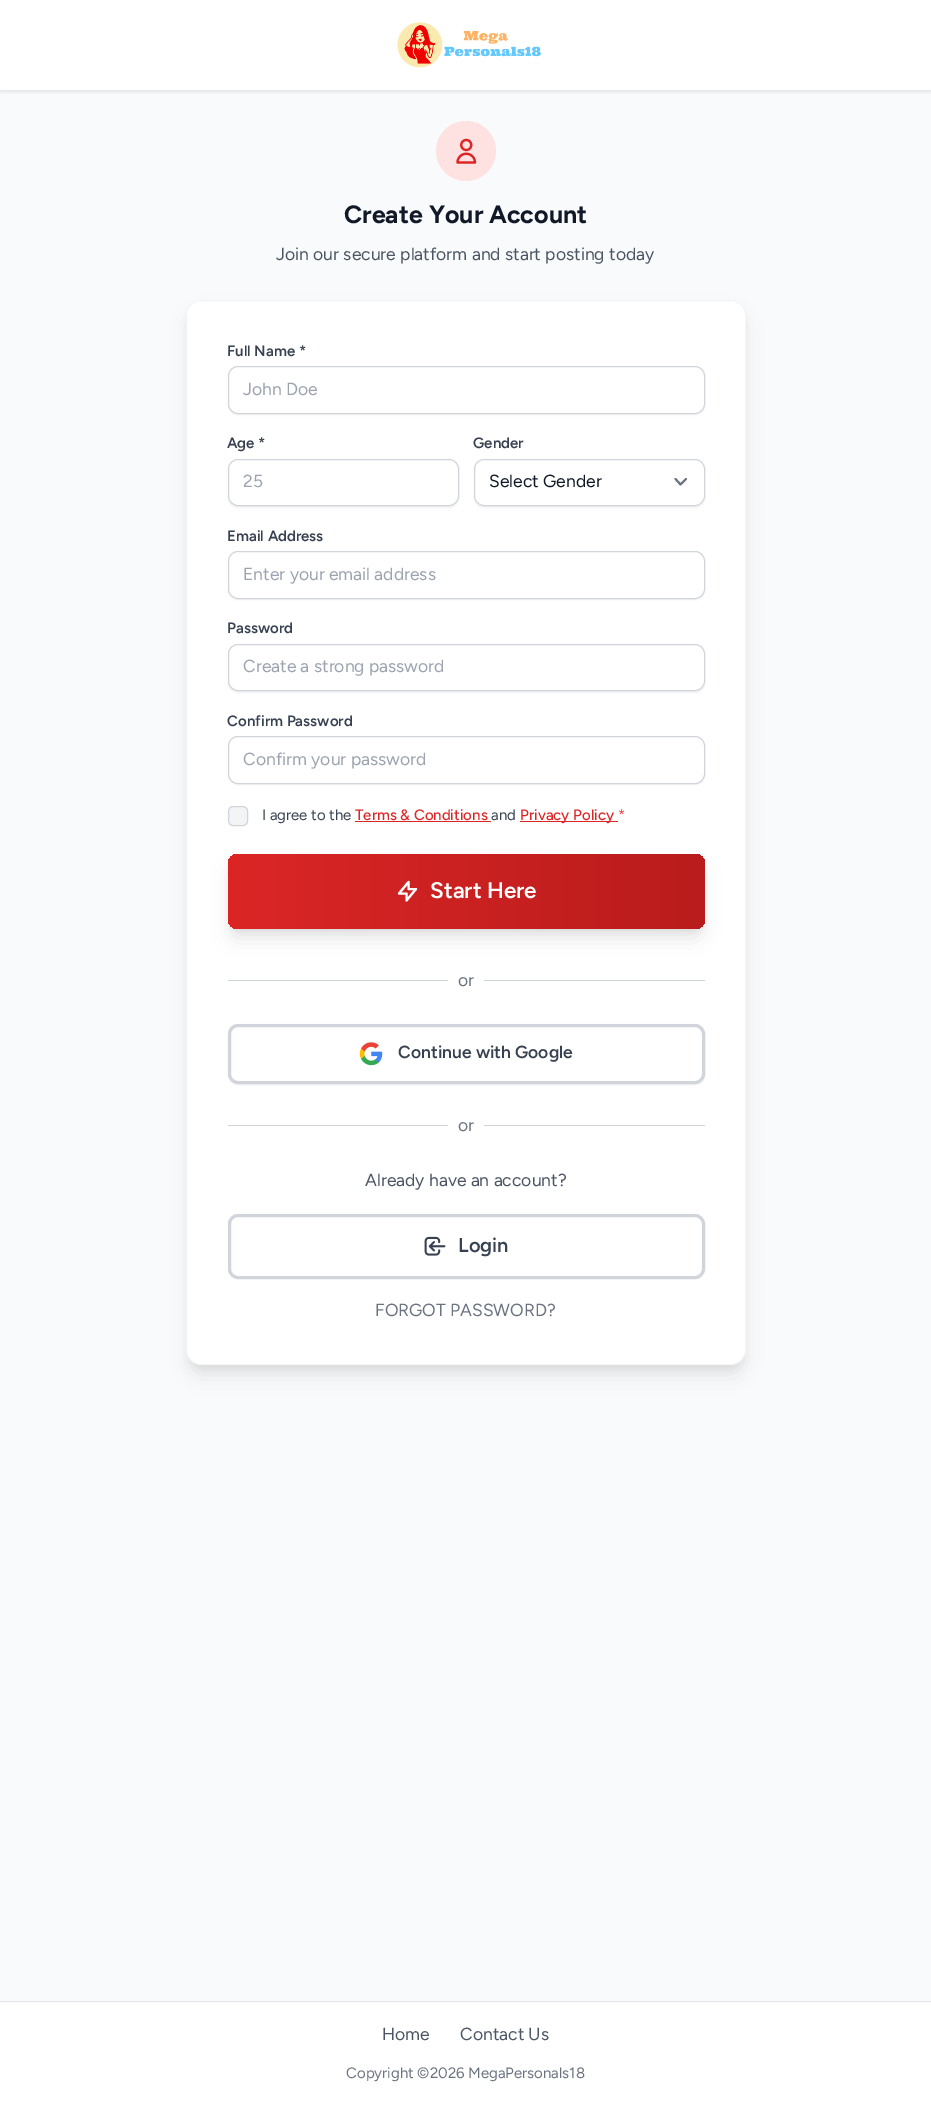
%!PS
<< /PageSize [931 2102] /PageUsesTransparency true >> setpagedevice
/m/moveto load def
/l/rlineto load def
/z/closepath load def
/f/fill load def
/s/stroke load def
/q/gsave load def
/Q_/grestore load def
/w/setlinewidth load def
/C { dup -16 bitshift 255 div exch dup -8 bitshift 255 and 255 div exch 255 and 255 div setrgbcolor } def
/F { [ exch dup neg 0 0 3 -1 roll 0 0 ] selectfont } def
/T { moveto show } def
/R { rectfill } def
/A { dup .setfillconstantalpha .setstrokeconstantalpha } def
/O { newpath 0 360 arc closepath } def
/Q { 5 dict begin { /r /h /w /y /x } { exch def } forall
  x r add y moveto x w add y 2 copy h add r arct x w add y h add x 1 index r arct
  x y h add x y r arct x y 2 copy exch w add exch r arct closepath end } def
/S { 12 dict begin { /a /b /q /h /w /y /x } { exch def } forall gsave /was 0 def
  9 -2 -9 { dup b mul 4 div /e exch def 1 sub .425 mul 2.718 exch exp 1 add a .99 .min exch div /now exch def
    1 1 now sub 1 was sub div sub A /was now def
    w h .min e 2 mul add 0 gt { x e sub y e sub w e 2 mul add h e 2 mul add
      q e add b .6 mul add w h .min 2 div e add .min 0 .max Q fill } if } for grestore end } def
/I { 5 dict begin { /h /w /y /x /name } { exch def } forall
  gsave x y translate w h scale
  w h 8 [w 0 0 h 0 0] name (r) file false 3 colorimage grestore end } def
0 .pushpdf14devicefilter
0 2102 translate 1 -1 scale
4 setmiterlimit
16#F9FAFB C
0 0 931 2102 R
16#000000 C
0 1 931 92 0 1 .05 S
16#FFFFFF C
0 0 931 90 R
16#E5E7EB C
0 90 931 1 R
(1.rgb) 397 22 144 46 I
16#FEE2E2 C
466 151 30 O f
(2.rgb) 456 138 21 26 I
/Figtree-Bold 25 F
16#111827 C
(Create Your Account) 344 223 T
/Figtree-Regular 17.5 F
16#4B5563 C
(Join our secure platform and start posting today) 276 260 T
16#000000 C
191 310 550 1055 10 4 .1 S
190 316 553 1058 11 9.5 .1 S
16#FFFFFF C
186.5 300.5 559 1064 14.5 Q q f Q_
16#F3F4F6 C
s
/Figtree-SemiBold 15 F
16#374151 C
(Full Name *) 227 356 T
16#000000 C
228 368 477 47 10 1 .05 S
16#FFFFFF C
228.5 366.5 476 47 9.5 Q q f Q_
16#D1D5DB C
s
/Figtree-Regular 17.5 F
16#9CA3AF C
(John Doe) 243 395 T
/Figtree-SemiBold 15 F
16#374151 C
(Age *) 227 448 T
16#000000 C
228 460 231 48 10 1 .05 S
16#FFFFFF C
228.5 459.5 230 46 9.5 Q q f Q_
16#D1D5DB C
s
/Figtree-Regular 17.5 F
16#9CA3AF C
(25) 243 487 T
/Figtree-SemiBold 15 F
16#374151 C
(Gender) 473 448 T
16#000000 C
474 460 231 48 10 1 .05 S
16#FFFFFF C
474 459 231 47 10 Q f
16#6B7280 C
2 w
1 setlinecap
1 setlinejoin
675.5 479 m 5 5.5 l 5.5 -5.5 l s
16#D1D5DB C
1 w
0 setlinecap
0 setlinejoin
474.5 459.5 230 46 9.5 Q s
/Figtree-Regular 17.5 F
16#111827 C
(Select Gender) 489 487 T
/Figtree-SemiBold 15 F
16#374151 C
(Email Address) 227 541 T
16#000000 C
228 553 477 47 10 1 .05 S
16#FFFFFF C
228.5 551.5 476 47 9.5 Q q f Q_
16#D1D5DB C
s
/Figtree-Regular 17.5 F
16#9CA3AF C
(Enter your email address) 243 580 T
/Figtree-SemiBold 15 F
16#374151 C
(Password) 227 633 T
16#000000 C
228 645 477 48 10 1 .05 S
16#FFFFFF C
228.5 644.5 476 46 9.5 Q q f Q_
16#D1D5DB C
s
/Figtree-Regular 17.5 F
16#9CA3AF C
(Create a strong password) 243 672 T
/Figtree-SemiBold 15 F
16#374151 C
(Confirm Password) 227 726 T
16#000000 C
228 738 477 47 10 1 .05 S
16#FFFFFF C
228.5 736.5 476 47 9.5 Q q f Q_
16#D1D5DB C
s
/Figtree-Regular 17.5 F
16#9CA3AF C
(Confirm your password) 243 765 T
16#F3F4F6 C
228.5 806.5 19 19 4.5 Q q f Q_
16#D1D5DB C
s
/Figtree-Regular 15 F
16#374151 C
(I agree to the) 262 820 T
/Figtree-Medium 15 F
16#DC2626 C
(Terms & Conditions) 355 820 T
355 821 136 1 R
/Figtree-Regular 15 F
16#374151 C
(and) 491 820 T
16#DC2626 C
520 821 98 1 R
/Figtree-Medium 15 F
(Privacy Policy) 520 820 T
/Figtree-Regular 15 F
16#EF4444 C
(*) 618 820 T
16#000000 C
233 864 467 65 5 4 .1 S
231 870 470 68 6 9.5 .1 S
q 228 854 477 75 10 Q clip newpath
<< /ShadingType 2 /ColorSpace /DeviceRGB /Coords [228 891 705 891] /Extend [true true] /Function << /FunctionType 2 /Domain [0 1] /C0 [.863 .149 .149] /C1 [.725 .11 .11] /N 1 >> >> shfill Q_
16#FFFFFF C
2.1 w
1 setlinecap
1 setlinejoin
408.5 889 m 0 -7 l -9.5 11.5 l 7.5 0 l 0 7 l 9.5 -11.5 l z s
/Figtree-SemiBold 22.5 F
(Start Here) 430 898 T
16#D1D5DB C
228 980 477 1 R
16#FFFFFF C
448 980 36 1 R
/Figtree-Regular 17.5 F
16#6B7280 C
(or) 458 986 T
16#000000 C
228 1025 477 60 10 1 .05 S
16#FFFFFF C
229.5 1025.5 474 57 8.5 Q q f Q_
16#D1D5DB C
3 w
0 setlinecap
0 setlinejoin
s
(3.rgb) 359 1042 24 24 I
/Figtree-SemiBold 17.5 F
16#374151 C
(Continue with Google) 398 1058 T
16#D1D5DB C
228 1125 477 1 R
16#FFFFFF C
448 1125 36 1 R
/Figtree-Regular 17.5 F
16#6B7280 C
(or) 458 1131 T
16#4B5563 C
(Already have an account?) 365 1186 T
16#D1D5DB C
229.5 1215.5 474 62 8.5 Q s
(4.rgb) 424 1236 22 20 I
/Figtree-SemiBold 20 F
16#374151 C
(Login) 458 1252 T
/Figtree-Regular 17.5 F
16#6B7280 C
(FORGOT PASSWORD?) 375 1316 T
16#FFFFFF C
0 2003 931 99 R
16#E5E7EB C
0 2001 931 1 R
16#4B5563 C
(Home) 382 2040 T
(Contact Us) 460 2040 T
/Figtree-Regular 15 F
16#6B7280 C
(Copyright ©2026 MegaPersonals18) 346 2078 T
.poppdf14devicefilter showpage
